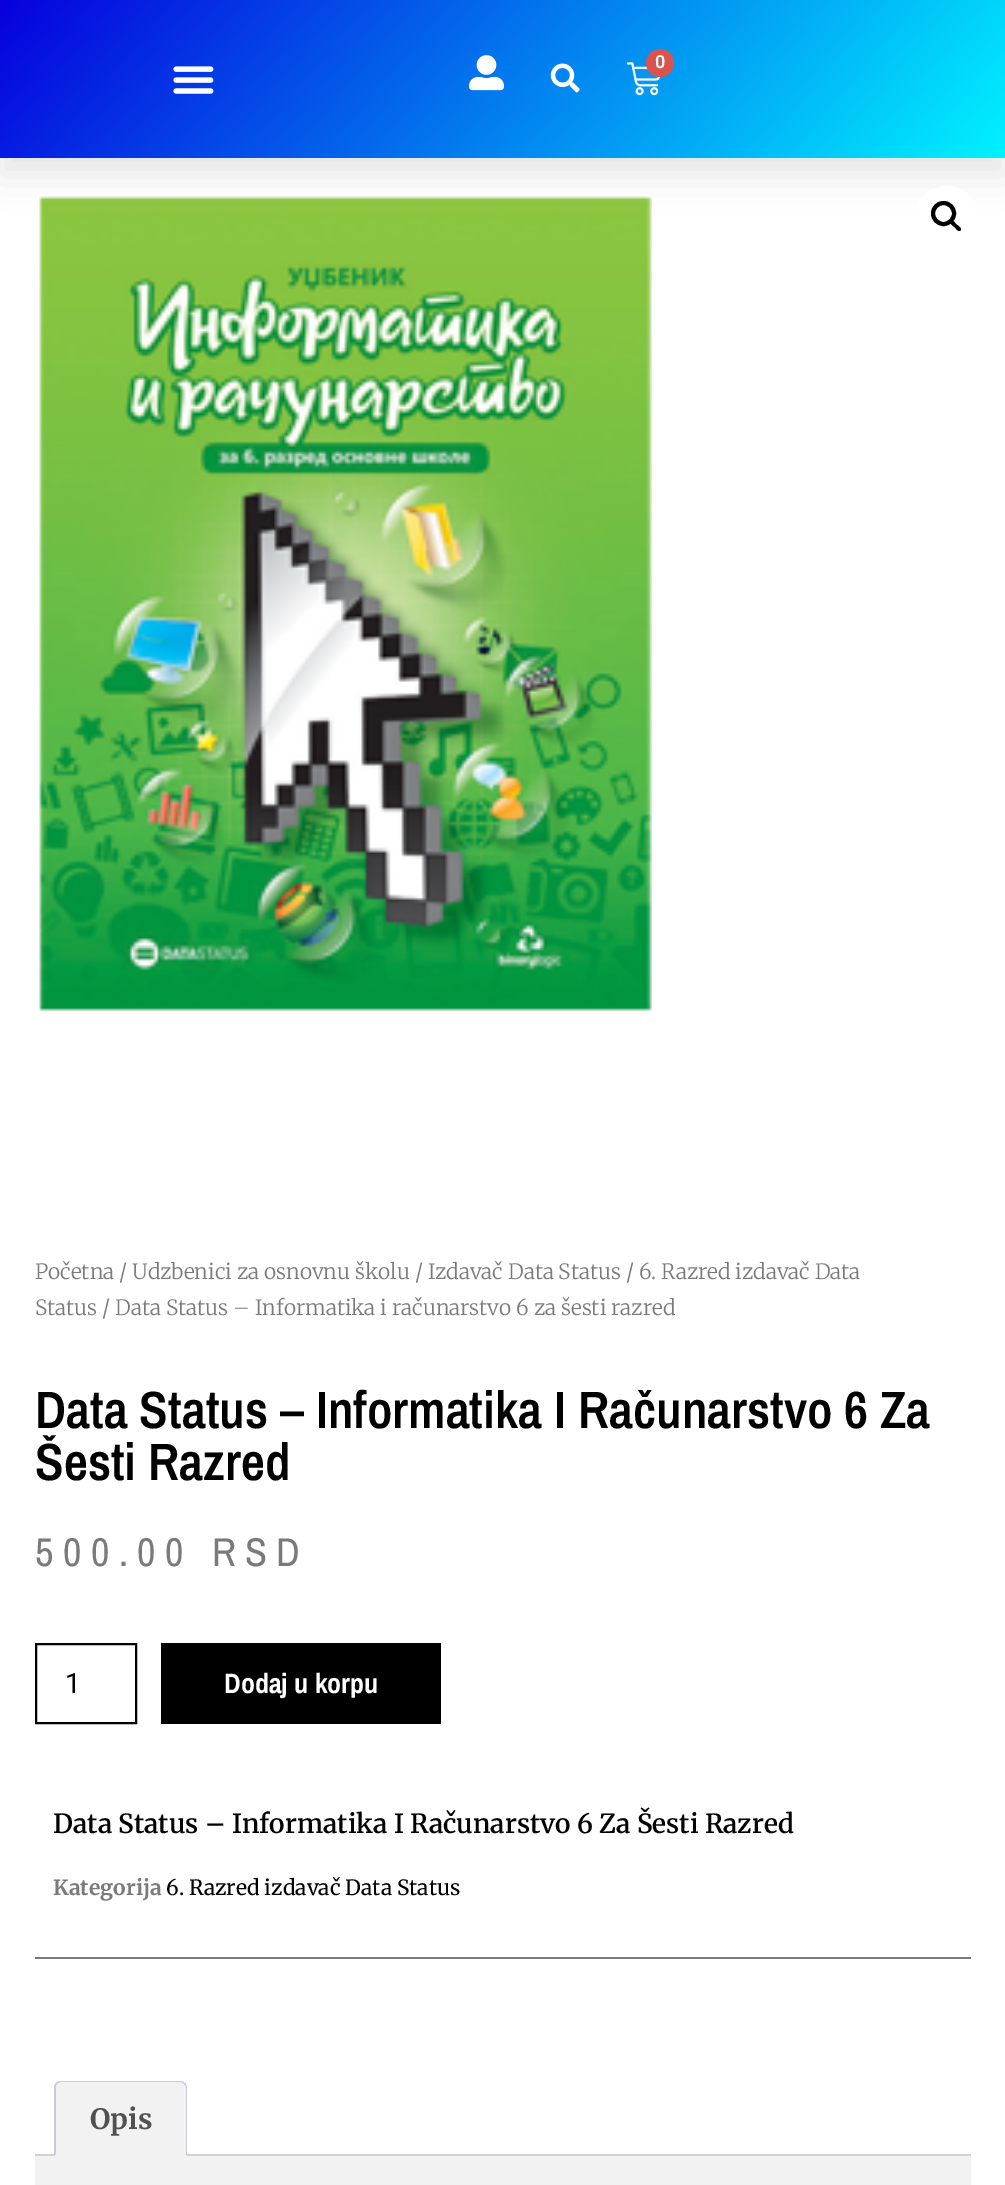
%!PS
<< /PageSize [1005 2185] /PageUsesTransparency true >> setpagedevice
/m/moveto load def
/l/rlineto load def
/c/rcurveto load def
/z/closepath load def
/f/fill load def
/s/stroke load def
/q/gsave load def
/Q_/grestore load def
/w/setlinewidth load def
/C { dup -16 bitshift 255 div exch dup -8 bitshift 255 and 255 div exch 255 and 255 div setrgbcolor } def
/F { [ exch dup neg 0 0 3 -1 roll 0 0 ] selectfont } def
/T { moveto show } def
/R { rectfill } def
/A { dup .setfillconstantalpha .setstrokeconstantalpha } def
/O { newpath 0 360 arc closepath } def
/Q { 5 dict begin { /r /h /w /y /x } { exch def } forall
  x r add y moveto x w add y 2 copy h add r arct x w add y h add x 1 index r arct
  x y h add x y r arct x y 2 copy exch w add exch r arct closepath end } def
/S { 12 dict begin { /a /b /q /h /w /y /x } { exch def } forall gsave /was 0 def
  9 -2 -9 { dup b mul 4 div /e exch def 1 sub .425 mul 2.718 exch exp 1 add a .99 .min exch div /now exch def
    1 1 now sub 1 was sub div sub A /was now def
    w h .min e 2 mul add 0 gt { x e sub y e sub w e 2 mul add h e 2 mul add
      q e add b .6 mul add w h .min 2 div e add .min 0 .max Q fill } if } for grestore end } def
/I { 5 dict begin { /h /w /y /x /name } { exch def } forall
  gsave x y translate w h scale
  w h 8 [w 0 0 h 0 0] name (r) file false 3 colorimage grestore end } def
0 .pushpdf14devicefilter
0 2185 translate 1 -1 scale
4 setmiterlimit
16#FFFFFF C
0 0 1005 2185 R
(5.rgb) 39 196 613 815 I
16#000000 C
0 18 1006 157 0 17.5 .1 S
q 0 0 m 1005 0 l 0 158 l -1005 0 l z clip newpath
<< /ShadingType 2 /ColorSpace /DeviceRGB /Coords [169 -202 837 359] /Extend [true true] /Function << /FunctionType 2 /Domain [0 1] /C0 [.027 0 .867] /C1 [0 .949 1] /N 1 >> >> shfill Q_
(1.rgb) 469 55 35 36 I
(2.rgb) 550 63 30 30 I
(3.rgb) 626 62 35 34 I
16#D9534F C
660 63 14 O f
/Roboto-SemiBold 18 F
16#FFFFFF C
(0) 655 68 T
(4.rgb) 173 66 41 28 I
946.5 217.5 31.5 O f
16#000000 C
4 w
943.5 213.5 10.5 O s
950.5 221 m 2 -2 5 2.5 6 3.5 c 1.5 1 6 4 4 6 c -2 2 -5 -2.5 -6 -3.5 c -1.5 -1 -6 -4 -4 -6 c z f
/Merriweather-Light 21 F
16#7A7A7A C
(Početna / Udzbenici za osnovnu školu / Izdavač Data Status / 6. Razred izdavač Data) 35 1279 T
(Status / Data Status – Informatika i računarstvo 6 za šesti razred) 35 1315 T
/ArchivoNarrow-SemiBold 52.5 F
16#000000 C
(Data Status – Informatika I Računarstvo 6 Za) 35 1428 T
(Šesti Razred) 35 1480 T
/ArchivoNarrow-Regular 40.25 F
16#7A7A7A C
35 1566 m 9.5 0 (500.00 RSD) ashow
16#000000 C
2 w
36 1644 100 79 rectstroke
/Roboto-Regular 28 F
(1) 65 1693 T
161 1643 280 81 R
/ArchivoNarrow-Bold 28 F
16#FFFFFF C
(Dodaj u korpu) 224 1693 T
16#7A7A7A C
35 1957 936 2 R
/Merriweather-SemiBold 26.25 F
16#000000 C
(Data Status – Informatika I Računarstvo 6 Za Šesti Razred) 53 1833 T
/Merriweather-Bold 21 F
16#7A7A7A C
(Kategorija) 53 1895 T
/Merriweather-Regular 21 F
16#000000 C
(6. Razred izdavač Data Status) 166 1895 T
16#D3CED2 C
35 2154 936 2 R
16#F2F2F2 C
61 2081 m 119 0 l 4 0 7 3 7 7 c 0 68 l -133 0 l 0 -68 l 0 -4 3 -7 7 -7 c z f
16#CFC8D8 C
61 2081 m -2 0 -4 1 -5 2 c 1 1 l 1 -1 3 -2 4 -2 c 119 0 l 2 0 3 1 4 2 c 1 -1 l -1 -1 -3 -2 -5 -2 c z f
187 2156 m 0 -68 l 0 -2 -1 -4 -2 -5 c -1 1 l 1 1 2 2 2 4 c 0 66 l -1 0 l z f
16#F2F2F2 C
54 2156 m 133 0 l -2 -2 l -129 0 l z f
16#CFC8D8 C
54 2156 m 2 -2 l 0 -66 l 0 -2 0 -3 1 -4 c -1 -1 l -2 3 l z f
/Merriweather-Bold 28 F
16#515151 C
(Opis) 90 2129 T
16#F2F2F2 C
35 2156 936 29 R
.poppdf14devicefilter showpage
